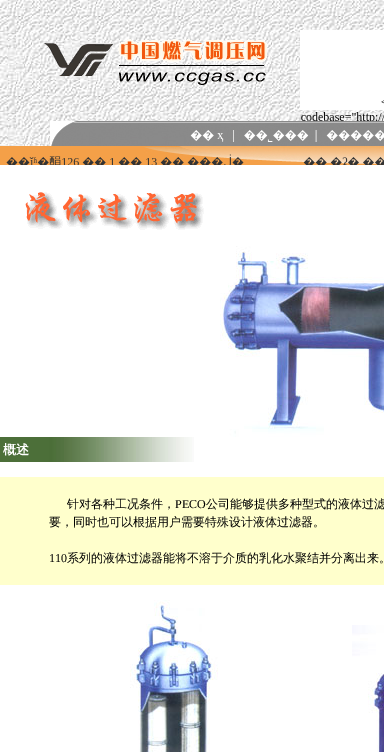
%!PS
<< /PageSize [384 752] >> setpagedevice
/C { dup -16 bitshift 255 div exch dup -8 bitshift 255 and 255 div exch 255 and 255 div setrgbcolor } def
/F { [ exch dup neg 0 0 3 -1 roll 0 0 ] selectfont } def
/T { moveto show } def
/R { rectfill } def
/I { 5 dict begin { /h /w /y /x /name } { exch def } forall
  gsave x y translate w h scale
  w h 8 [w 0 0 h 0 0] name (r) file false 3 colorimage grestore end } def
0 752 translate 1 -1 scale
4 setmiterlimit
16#FFFFFF C
0 0 384 752 R
(1.rgb) 0 0 384 165 I
(2.rgb) 25 192 179 38 I
(3.rgb) 220 246 164 191 I
(4.rgb) 0 437 194 25 I
/WenQuanYiZenHei-Bold 13 F
(概述) 3 454 T
16#FFFFCC C
0 477 384 108 R
/WenQuanYiZenHei-Medium 12 F
16#000000 C
(针对各种工况条件，) 67 508 T
/LiberationSerif-Regular 12 F
(PECO) 175 508 T
/WenQuanYiZenHei-Medium 12 F
(公司能够提供多种型式的液体过滤) 206 508 T
(要，同时也可以根据用户需要特殊设计液体过滤器。) 49 526 T
/LiberationSerif-Regular 12 F
(110) 49 562 T
/WenQuanYiZenHei-Medium 12 F
(系列的液体过滤器能将不溶于介质的乳化水聚结并分离出来。) 67 562 T
(5.rgb) 130 600 88 152 I
(6.rgb) 352 625 32 127 I
showpage
